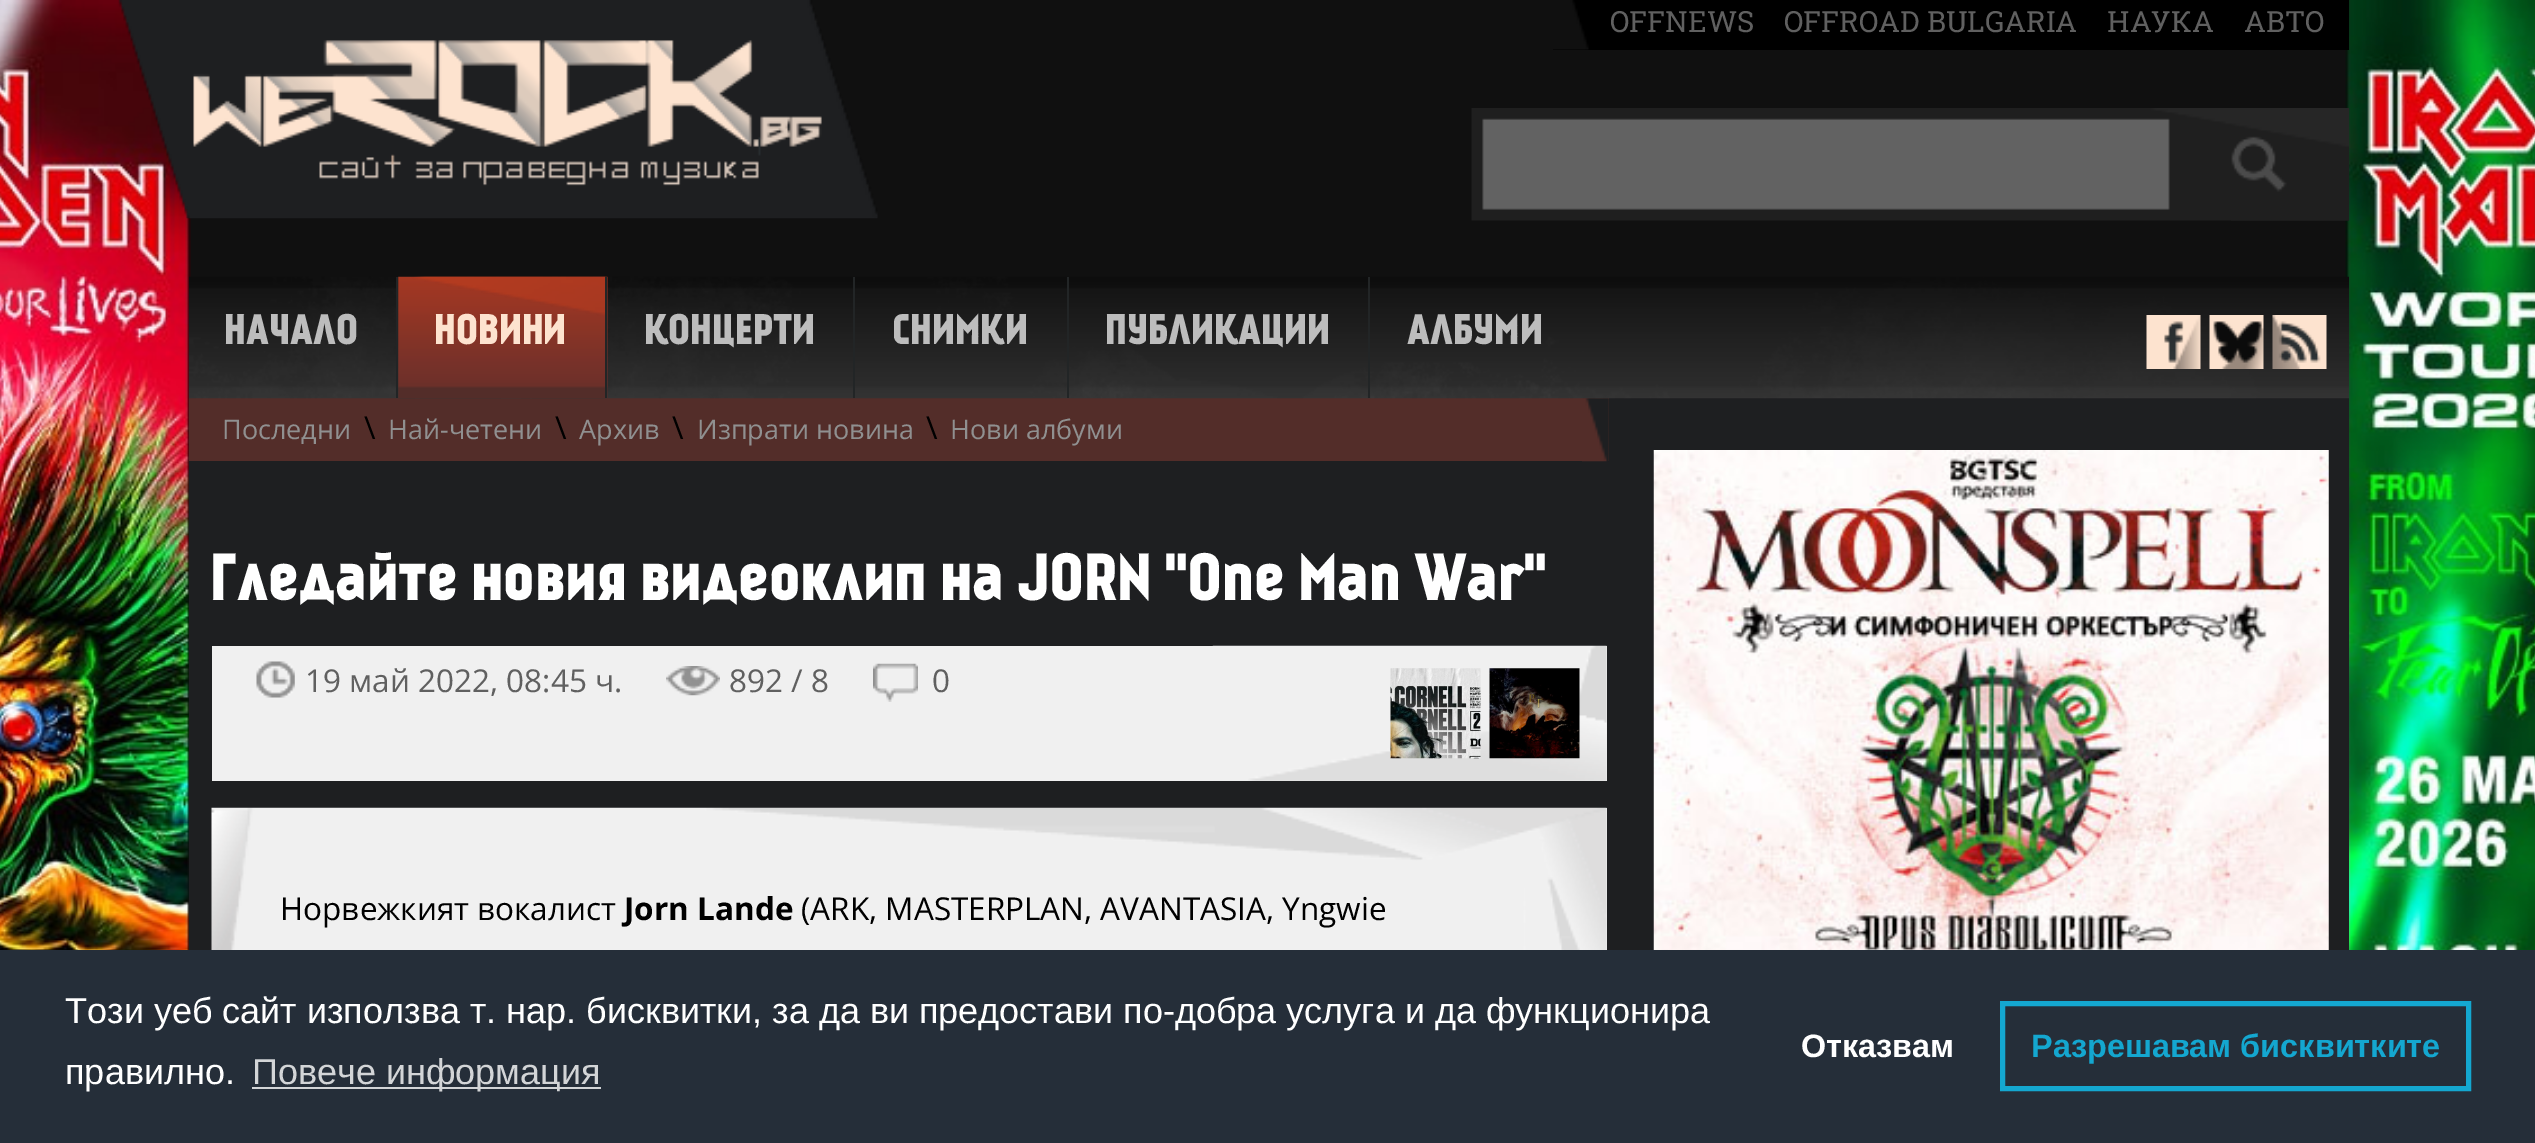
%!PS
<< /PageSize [2535 1143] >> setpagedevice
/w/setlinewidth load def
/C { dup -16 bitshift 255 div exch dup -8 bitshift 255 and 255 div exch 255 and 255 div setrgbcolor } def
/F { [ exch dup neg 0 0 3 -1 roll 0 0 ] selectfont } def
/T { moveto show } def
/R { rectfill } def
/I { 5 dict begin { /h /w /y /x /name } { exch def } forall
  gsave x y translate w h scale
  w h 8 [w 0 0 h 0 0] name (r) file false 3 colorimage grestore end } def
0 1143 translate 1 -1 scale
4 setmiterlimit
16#FFFFFF C
0 0 2535 1143 R
(1.rgb) 0 0 2535 950 I
(2.rgb) 118 0 760 219 I
16#000000 C
1553 0 796 50 R
(3.rgb) 1553 0 36 50 I
/RobotoSlab-Regular 29.25 F
16#606060 C
(OFFNEWS) 1610 32 T
(OFFROAD BULGARIA) 1784 32 T
(НАУКА) 2107 32 T
(АВТО) 2244 32 T
(4.rgb) 1471 108 878 113 I
(5.rgb) 2231 136 118 85 I
16#1E1F21 C
189 398 2160 552 R
16#532D29 C
189 398 1420 63 R
(11.rgb) 1582 398 27 64 I
(6.rgb) 189 276 2160 123 I
16#222526 C
396 277 2 121 R
/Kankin-Regular 40.5 F
16#BDBDBD C
(НАЧАЛО) 224 344 T
(7.rgb) 398 276 210 122 I
16#222526 C
605 277 2 121 R
16#FDE3CF C
(НОВИНИ) 434 344 T
16#222526 C
853 277 2 121 R
16#BDBDBD C
(КОНЦЕРТИ) 644 344 T
16#222526 C
1067 277 2 121 R
16#BDBDBD C
(СНИМКИ) 892 344 T
16#222526 C
1368 277 2 121 R
16#BDBDBD C
(ПУБЛИКАЦИИ) 1105 344 T
(АЛБУМИ) 1407 344 T
(8.rgb) 2146 315 55 54 I
(9.rgb) 2209 315 55 54 I
(10.rgb) 2272 315 55 54 I
/OpenSans-Regular 27 F
16#909090 C
(Последни) 222 439 T
/OpenSans-Regular 31.5 F
16#000000 C
(\\) 364 439 T
/OpenSans-Regular 27 F
16#909090 C
(Най-четени) 388 439 T
/OpenSans-Regular 31.5 F
16#000000 C
(\\) 555 439 T
/OpenSans-Regular 27 F
16#909090 C
(Архив) 579 439 T
/OpenSans-Regular 31.5 F
16#000000 C
(\\) 672 439 T
/OpenSans-Regular 27 F
16#909090 C
(Изпрати новина) 697 439 T
/OpenSans-Regular 31.5 F
16#000000 C
(\\) 926 439 T
/OpenSans-Regular 27 F
16#909090 C
(Нови албуми) 950 439 T
/Kankin-Regular 63 F
16#FFFFFF C
(Гледайте новия видеоклип на JORN "One Man War") 210 600 T
16#F0F0F0 C
212 646 1395 135 R
(12.rgb) 1212 645 395 136 I
(13.rgb) 256 661 39 37 I
/OpenSans-Regular 31.5 F
16#606060 C
(19 май 2022, 08:45 ч.) 305 692 T
(14.rgb) 666 666 54 30 I
(892 / 8) 729 692 T
(15.rgb) 873 663 45 39 I
(0) 932 692 T
(16.rgb) 1390 668 91 91 I
(17.rgb) 1489 668 91 91 I
16#F0F0F0 C
1606 808 1 142 R
(18.rgb) 211 807 1396 143 I
16#000000 C
(Норвежкият вокалист) 280 920 T
/OpenSans-Bold 31.5 F
(Jorn Lande) 624 920 T
/OpenSans-Regular 31.5 F
(\(ARK, MASTERPLAN, AVANTASIA, Yngwie) 801 920 T
(19.rgb) 1653 450 676 500 I
16#252E39 C
0 950 2535 193 R
/LiberationSans-Regular 36 F
16#FFFFFF C
(Този уеб сайт използва т. нар. бисквитки, за да ви предостави по-добра услуга и да функционира) 65 1023 T
(правилно.) 65 1084 T
16#D3D5D7 C
252 1087 349 2 R
(Повече информация) 252 1084 T
/LiberationSans-Bold 32.4 F
16#FFFFFF C
(Отказвам) 1801 1057 T
16#14A7D0 C
5 w
2002.5 1003.5 466 85 rectstroke
(Разрешавам бисквитките) 2031 1057 T
showpage
